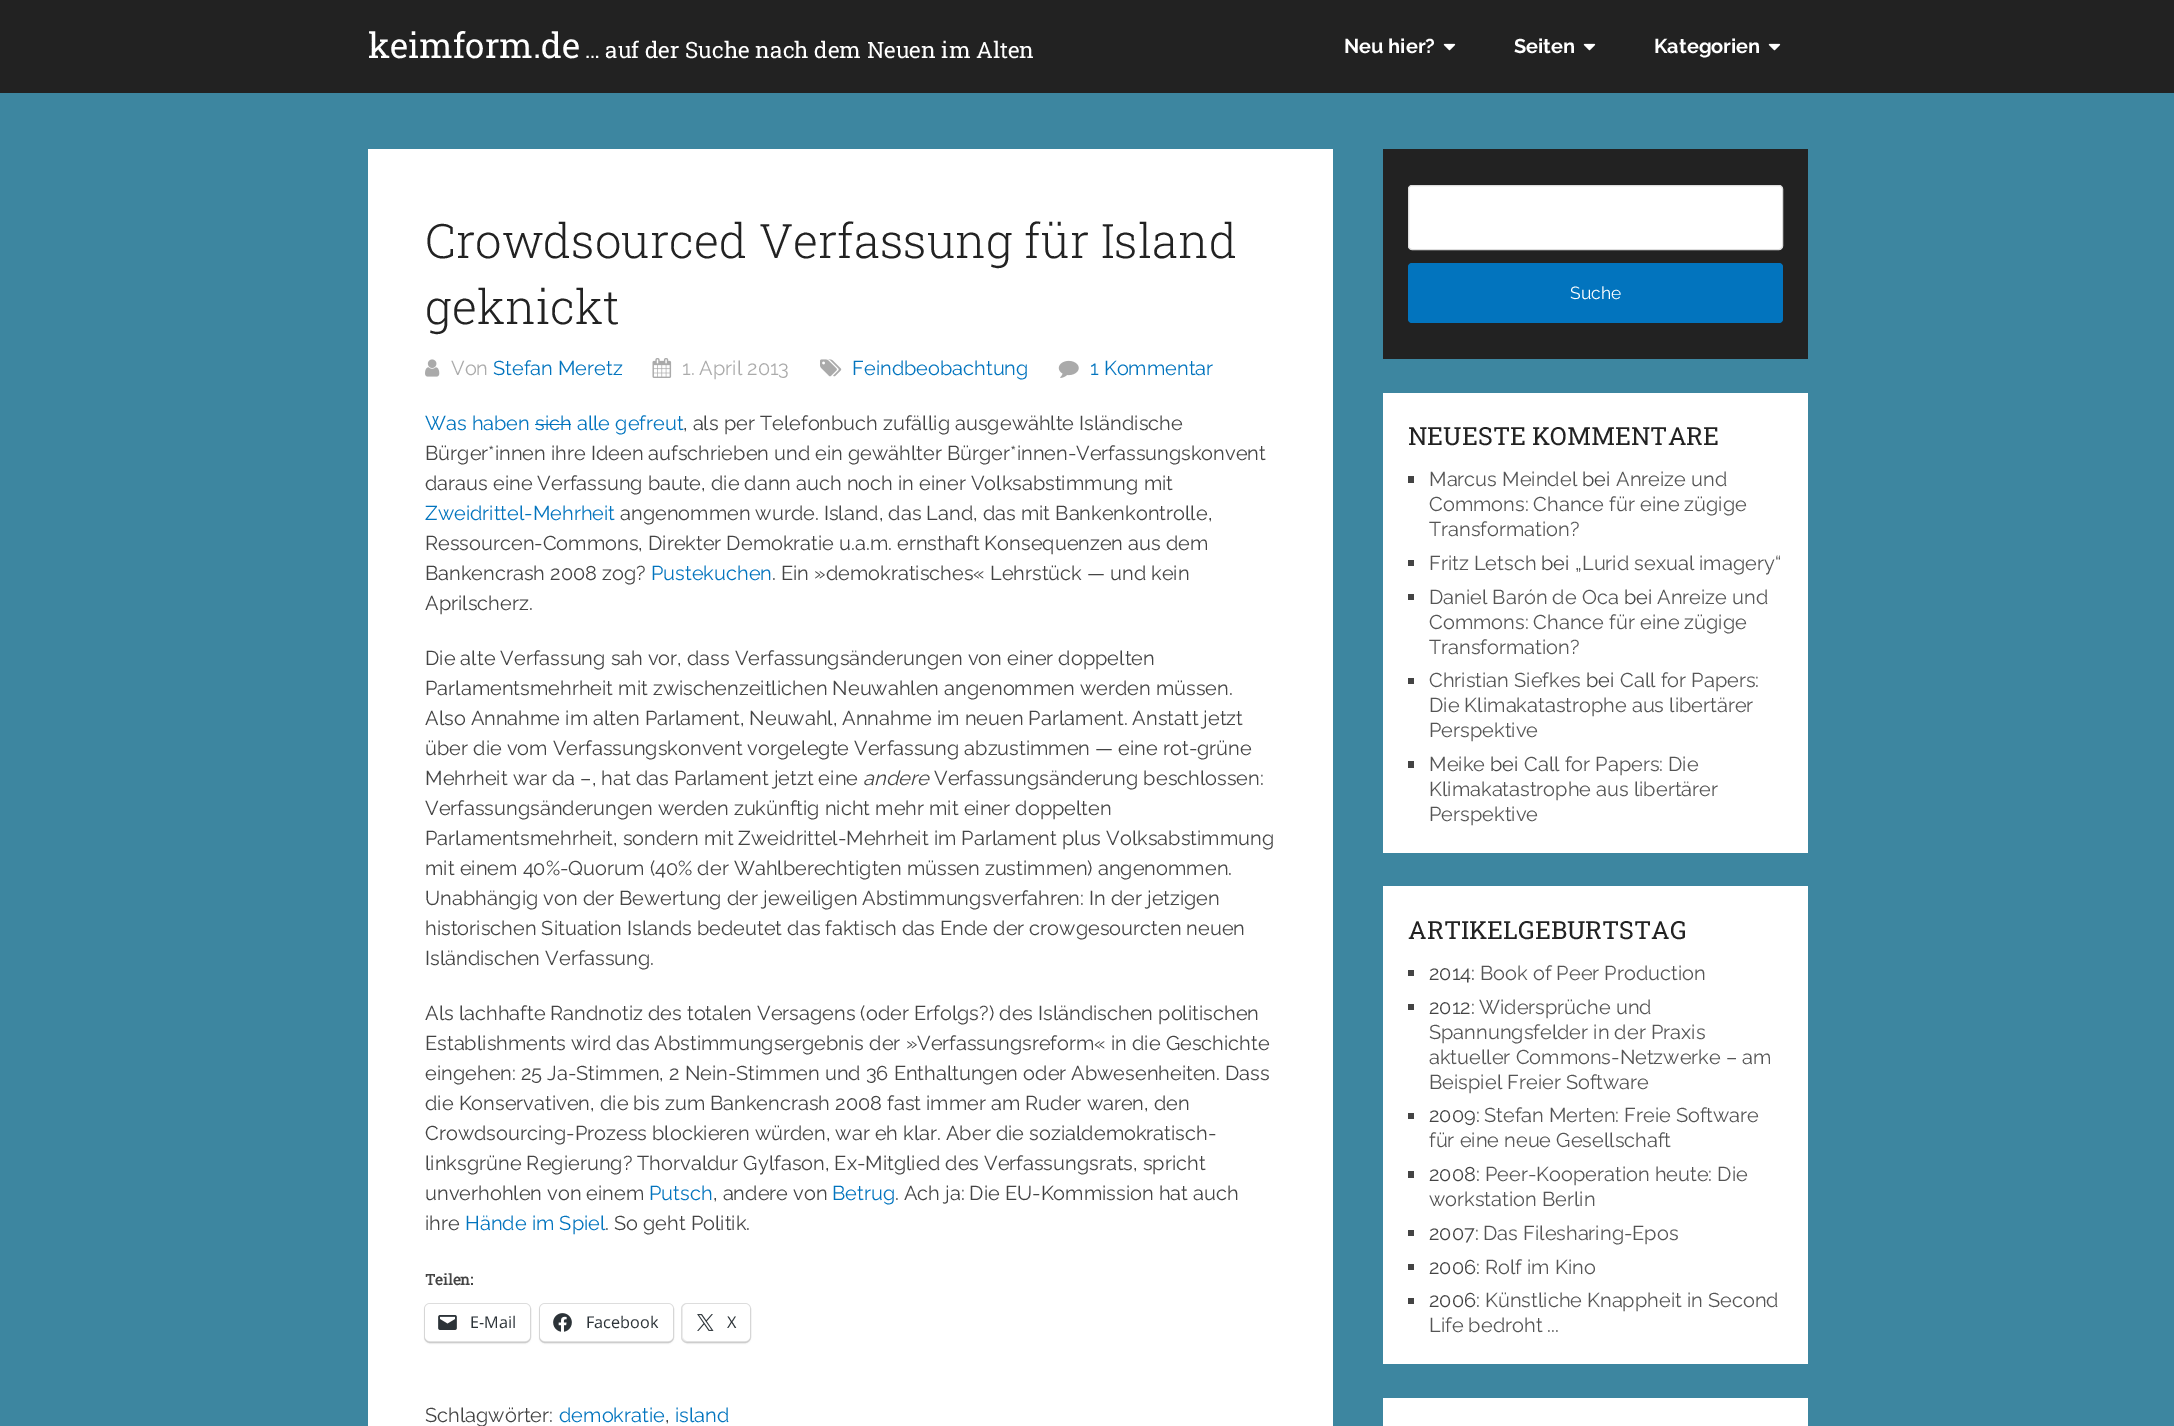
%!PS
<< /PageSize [2174 1426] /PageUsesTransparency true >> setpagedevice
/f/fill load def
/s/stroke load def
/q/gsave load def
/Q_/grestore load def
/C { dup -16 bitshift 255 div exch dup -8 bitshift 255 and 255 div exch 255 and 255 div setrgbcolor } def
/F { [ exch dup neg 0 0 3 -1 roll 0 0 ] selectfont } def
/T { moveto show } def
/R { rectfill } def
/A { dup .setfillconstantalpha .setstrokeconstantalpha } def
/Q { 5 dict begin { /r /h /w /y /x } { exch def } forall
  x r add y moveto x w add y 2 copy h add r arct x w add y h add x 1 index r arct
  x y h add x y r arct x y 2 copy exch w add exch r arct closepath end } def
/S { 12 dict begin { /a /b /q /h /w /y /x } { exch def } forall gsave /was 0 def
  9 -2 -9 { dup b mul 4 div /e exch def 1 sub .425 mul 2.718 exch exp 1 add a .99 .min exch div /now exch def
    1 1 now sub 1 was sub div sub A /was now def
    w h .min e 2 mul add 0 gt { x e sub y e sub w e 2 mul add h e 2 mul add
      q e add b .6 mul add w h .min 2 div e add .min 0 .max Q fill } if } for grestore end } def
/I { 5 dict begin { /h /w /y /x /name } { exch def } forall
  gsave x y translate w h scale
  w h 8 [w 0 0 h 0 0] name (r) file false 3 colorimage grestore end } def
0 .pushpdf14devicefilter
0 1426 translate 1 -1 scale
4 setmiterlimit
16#3D86A0 C
0 0 2174 1426 R
16#222222 C
0 0 2174 93 R
/RobotoSlab-Regular 35 F
16#FFFFFF C
(keimform.de) 368 58 T
/RobotoSlab-Regular 22.5 F
(… auf der Suche nach dem Neuen im Alten) 585 58 T
/Raleway-Bold 20 F
(Neu hier?) 1344 53 T
(1.rgb) 1443 43 13 8 I
(Seiten) 1514 53 T
(1.rgb) 1583 43 13 8 I
(Kategorien) 1654 53 T
(1.rgb) 1768 43 13 8 I
368 149 965 1277 R
/RobotoSlab-Light 47.5 F
16#222222 C
(Crowdsourced Verfassung für Island) 425 258 T
(geknickt) 425 324 T
(2.rgb) 425 359 15 18 I
/Raleway-Regular 20 F
16#AAAAAA C
(Von) 451 375 T
16#0274BE C
(Stefan Meretz) 493 375 T
(3.rgb) 652 358 20 20 I
16#AAAAAA C
(1. April 2013) 682 375 T
(4.rgb) 820 359 22 18 I
16#0274BE C
(Feindbeobachtung) 852 375 T
(5.rgb) 1058 360 21 18 I
(1 Kommentar) 1090 375 T
(Was haben sich alle gefreut) 425 430 T
16#444444 C
(, als per Telefonbuch zufällig ausgewählte Isländische) 683 430 T
16#0274BE C
535 424 36 1 R
16#444444 C
(Bürger*innen ihre Ideen aufschrieben und ein gewählter Bürger*innen-Verfassungskonvent) 425 460 T
(daraus eine Verfassung baute, die dann auch noch in einer Volksabstimmung mit) 425 490 T
16#0274BE C
(Zweidrittel-Mehrheit) 425 520 T
16#444444 C
(angenommen wurde. Island, das Land, das mit Bankenkontrolle,) 620 520 T
(Ressourcen-Commons, Direkter Demokratie u.a.m. ernsthaft Konsequenzen aus dem) 425 550 T
(Bankencrash 2008 zog?) 425 580 T
16#0274BE C
(Pustekuchen) 651 580 T
16#444444 C
(. Ein »demokratisches« Lehrstück — und kein) 772 580 T
(Aprilscherz.) 425 610 T
(Die alte Verfassung sah vor, dass Verfassungsänderungen von einer doppelten) 425 665 T
(Parlamentsmehrheit mit zwischenzeitlichen Neuwahlen angenommen werden müssen.) 425 695 T
(Also Annahme im alten Parlament, Neuwahl, Annahme im neuen Parlament. Anstatt jetzt) 425 725 T
(über die vom Verfassungskonvent vorgelegte Verfassung abzustimmen — eine rot-grüne) 425 755 T
(Mehrheit war da –, hat das Parlament jetzt eine) 425 785 T
/Raleway-Italic 20 F
(andere) 863 785 T
/Raleway-Regular 20 F
(Verfassungsänderung beschlossen:) 934 785 T
(Verfassungsänderungen werden zukünftig nicht mehr mit einer doppelten) 425 815 T
(Parlamentsmehrheit, sondern mit Zweidrittel-Mehrheit im Parlament plus Volksabstimmung) 425 845 T
(mit einem 40%-Quorum \(40% der Wahlberechtigten müssen zustimmen\) angenommen.) 425 875 T
(Unabhängig von der Bewertung der jeweiligen Abstimmungsverfahren: In der jetzigen) 425 905 T
(historischen Situation Islands bedeutet das faktisch das Ende der crowgesourcten neuen) 425 935 T
(Isländischen Verfassung.) 425 965 T
(Als lachhafte Randnotiz des totalen Versagens \(oder Erfolgs?\) des Isländischen politischen) 425 1020 T
(Establishments wird das Abstimmungsergebnis der »Verfassungsreform« in die Geschichte) 425 1050 T
(eingehen: 25 Ja-Stimmen, 2 Nein-Stimmen und 36 Enthaltungen oder Abwesenheiten. Dass) 425 1080 T
(die Konservativen, die bis zum Bankencrash 2008 fast immer am Ruder waren, den) 425 1110 T
(Crowdsourcing-Prozess blockieren würden, war eh klar. Aber die sozialdemokratisch-) 425 1140 T
(linksgrüne Regierung? Thorvaldur Gylfason, Ex-Mitglied des Verfassungsrats, spricht) 425 1170 T
(unverhohlen von einem) 425 1200 T
16#0274BE C
(Putsch) 649 1200 T
16#444444 C
(, andere von) 713 1200 T
16#0274BE C
(Betrug) 832 1200 T
16#444444 C
(. Ach ja: Die EU-Kommission hat auch) 895 1200 T
(ihre) 425 1230 T
16#0274BE C
(Hände im Spiel) 465 1230 T
16#444444 C
(. So geht Politik.) 605 1230 T
/RobotoSlab-Bold 15 F
(Teilen:) 425 1285 T
16#E0E0E0 C
424.5 1303.5 106 39 5.5 Q s
16#000000 C
425 1305 105 38 5 1 .12 S
16#FFFFFF C
425 1304 105 37 5 Q f
(6.rgb) 438 1315 19 15 I
/OpenSans-Regular 16.25 F
16#2C3338 C
(E-Mail) 470 1328 T
16#E0E0E0 C
539.5 1303.5 134 39 5.5 Q s
16#000000 C
540 1305 133 38 5 1 .12 S
16#FFFFFF C
540 1304 133 37 5 Q f
(7.rgb) 553 1313 19 19 I
16#2C3338 C
(Facebook) 586 1328 T
16#E0E0E0 C
681.5 1303.5 69 39 5.5 Q s
16#000000 C
683 1305 67 38 5 1 .12 S
16#FFFFFF C
683 1304 67 37 5 Q f
(8.rgb) 697 1314 17 17 I
16#2C3338 C
(X) 727 1328 T
/Raleway-Regular 20 F
16#444444 C
(Schlagwörter:) 425 1422 T
16#0274BE C
(demokratie) 559 1422 T
16#444444 C
(,) 665 1422 T
16#0274BE C
(island) 675 1422 T
16#222222 C
1383 149 425 210 R
16#FFFFFF C
1408.5 185.5 374 64 3.5 Q q f Q_
16#DDDDDD C
s
16#0274BE C
1408 263 375 60 4 Q f
/Raleway-Regular 17.5 F
16#FFFFFF C
(Suche) 1570 299 T
1383 393 425 460 R
/RobotoSlab-Regular 25 F
16#222222 C
(NEUESTE KOMMENTARE) 1408 445 T
16#444444 C
1408 476 6 7 R
/Raleway-Regular 20 F
16#555555 C
(Marcus Meindel) 1429 486 T
16#444444 C
(bei) 1582 486 T
16#555555 C
(Anreize und) 1616 486 T
(Commons: Chance für eine zügige) 1429 511 T
(Transformation?) 1429 536 T
16#444444 C
1408 560 6 6 R
16#555555 C
(Fritz Letsch) 1429 570 T
16#444444 C
(bei) 1541 570 T
16#555555 C
(„Lurid sexual imagery“) 1575 570 T
16#444444 C
1408 594 6 6 R
16#555555 C
(Daniel Barón de Oca) 1429 604 T
16#444444 C
(bei) 1624 604 T
16#555555 C
(Anreize und) 1657 604 T
(Commons: Chance für eine zügige) 1429 629 T
(Transformation?) 1429 654 T
16#444444 C
1408 678 6 6 R
16#555555 C
(Christian Siefkes) 1429 687 T
16#444444 C
(bei) 1586 687 T
16#555555 C
(Call for Papers:) 1620 687 T
(Die Klimakatastrophe aus libertärer) 1429 712 T
(Perspektive) 1429 737 T
16#444444 C
1408 761 6 7 R
16#555555 C
(Meike) 1429 771 T
16#444444 C
(bei) 1490 771 T
16#555555 C
(Call for Papers: Die) 1524 771 T
(Klimakatastrophe aus libertärer) 1429 796 T
(Perspektive) 1429 821 T
16#FFFFFF C
1383 886 425 478 R
/RobotoSlab-Regular 25 F
16#222222 C
(ARTIKELGEBURTSTAG) 1408 939 T
16#444444 C
1408 970 6 6 R
/Raleway-Regular 20 F
(2014:) 1429 980 T
16#555555 C
(Book of Peer Production) 1480 980 T
16#444444 C
1408 1004 6 6 R
(2012:) 1429 1014 T
16#555555 C
(Widersprüche und) 1479 1014 T
(Spannungsfelder in der Praxis) 1429 1039 T
(aktueller Commons-Netzwerke – am) 1429 1064 T
(Beispiel Freier Software) 1429 1089 T
16#444444 C
1408 1113 6 6 R
(2009:) 1429 1122 T
16#555555 C
(Stefan Merten: Freie Software) 1484 1122 T
(für eine neue Gesellschaft) 1429 1147 T
16#444444 C
1408 1171 6 7 R
(2008:) 1429 1181 T
16#555555 C
(Peer-Kooperation heute: Die) 1485 1181 T
(workstation Berlin) 1429 1206 T
16#444444 C
1408 1230 6 6 R
(2007:) 1429 1240 T
16#555555 C
(Das Filesharing-Epos) 1483 1240 T
16#444444 C
1408 1264 6 6 R
(2006:) 1429 1274 T
16#555555 C
(Rolf im Kino) 1485 1274 T
16#444444 C
1408 1298 6 6 R
(2006:) 1429 1307 T
16#555555 C
(Künstliche Knappheit in Second) 1485 1307 T
(Life bedroht ...) 1429 1332 T
16#FFFFFF C
1383 1398 425 28 R
.poppdf14devicefilter showpage
